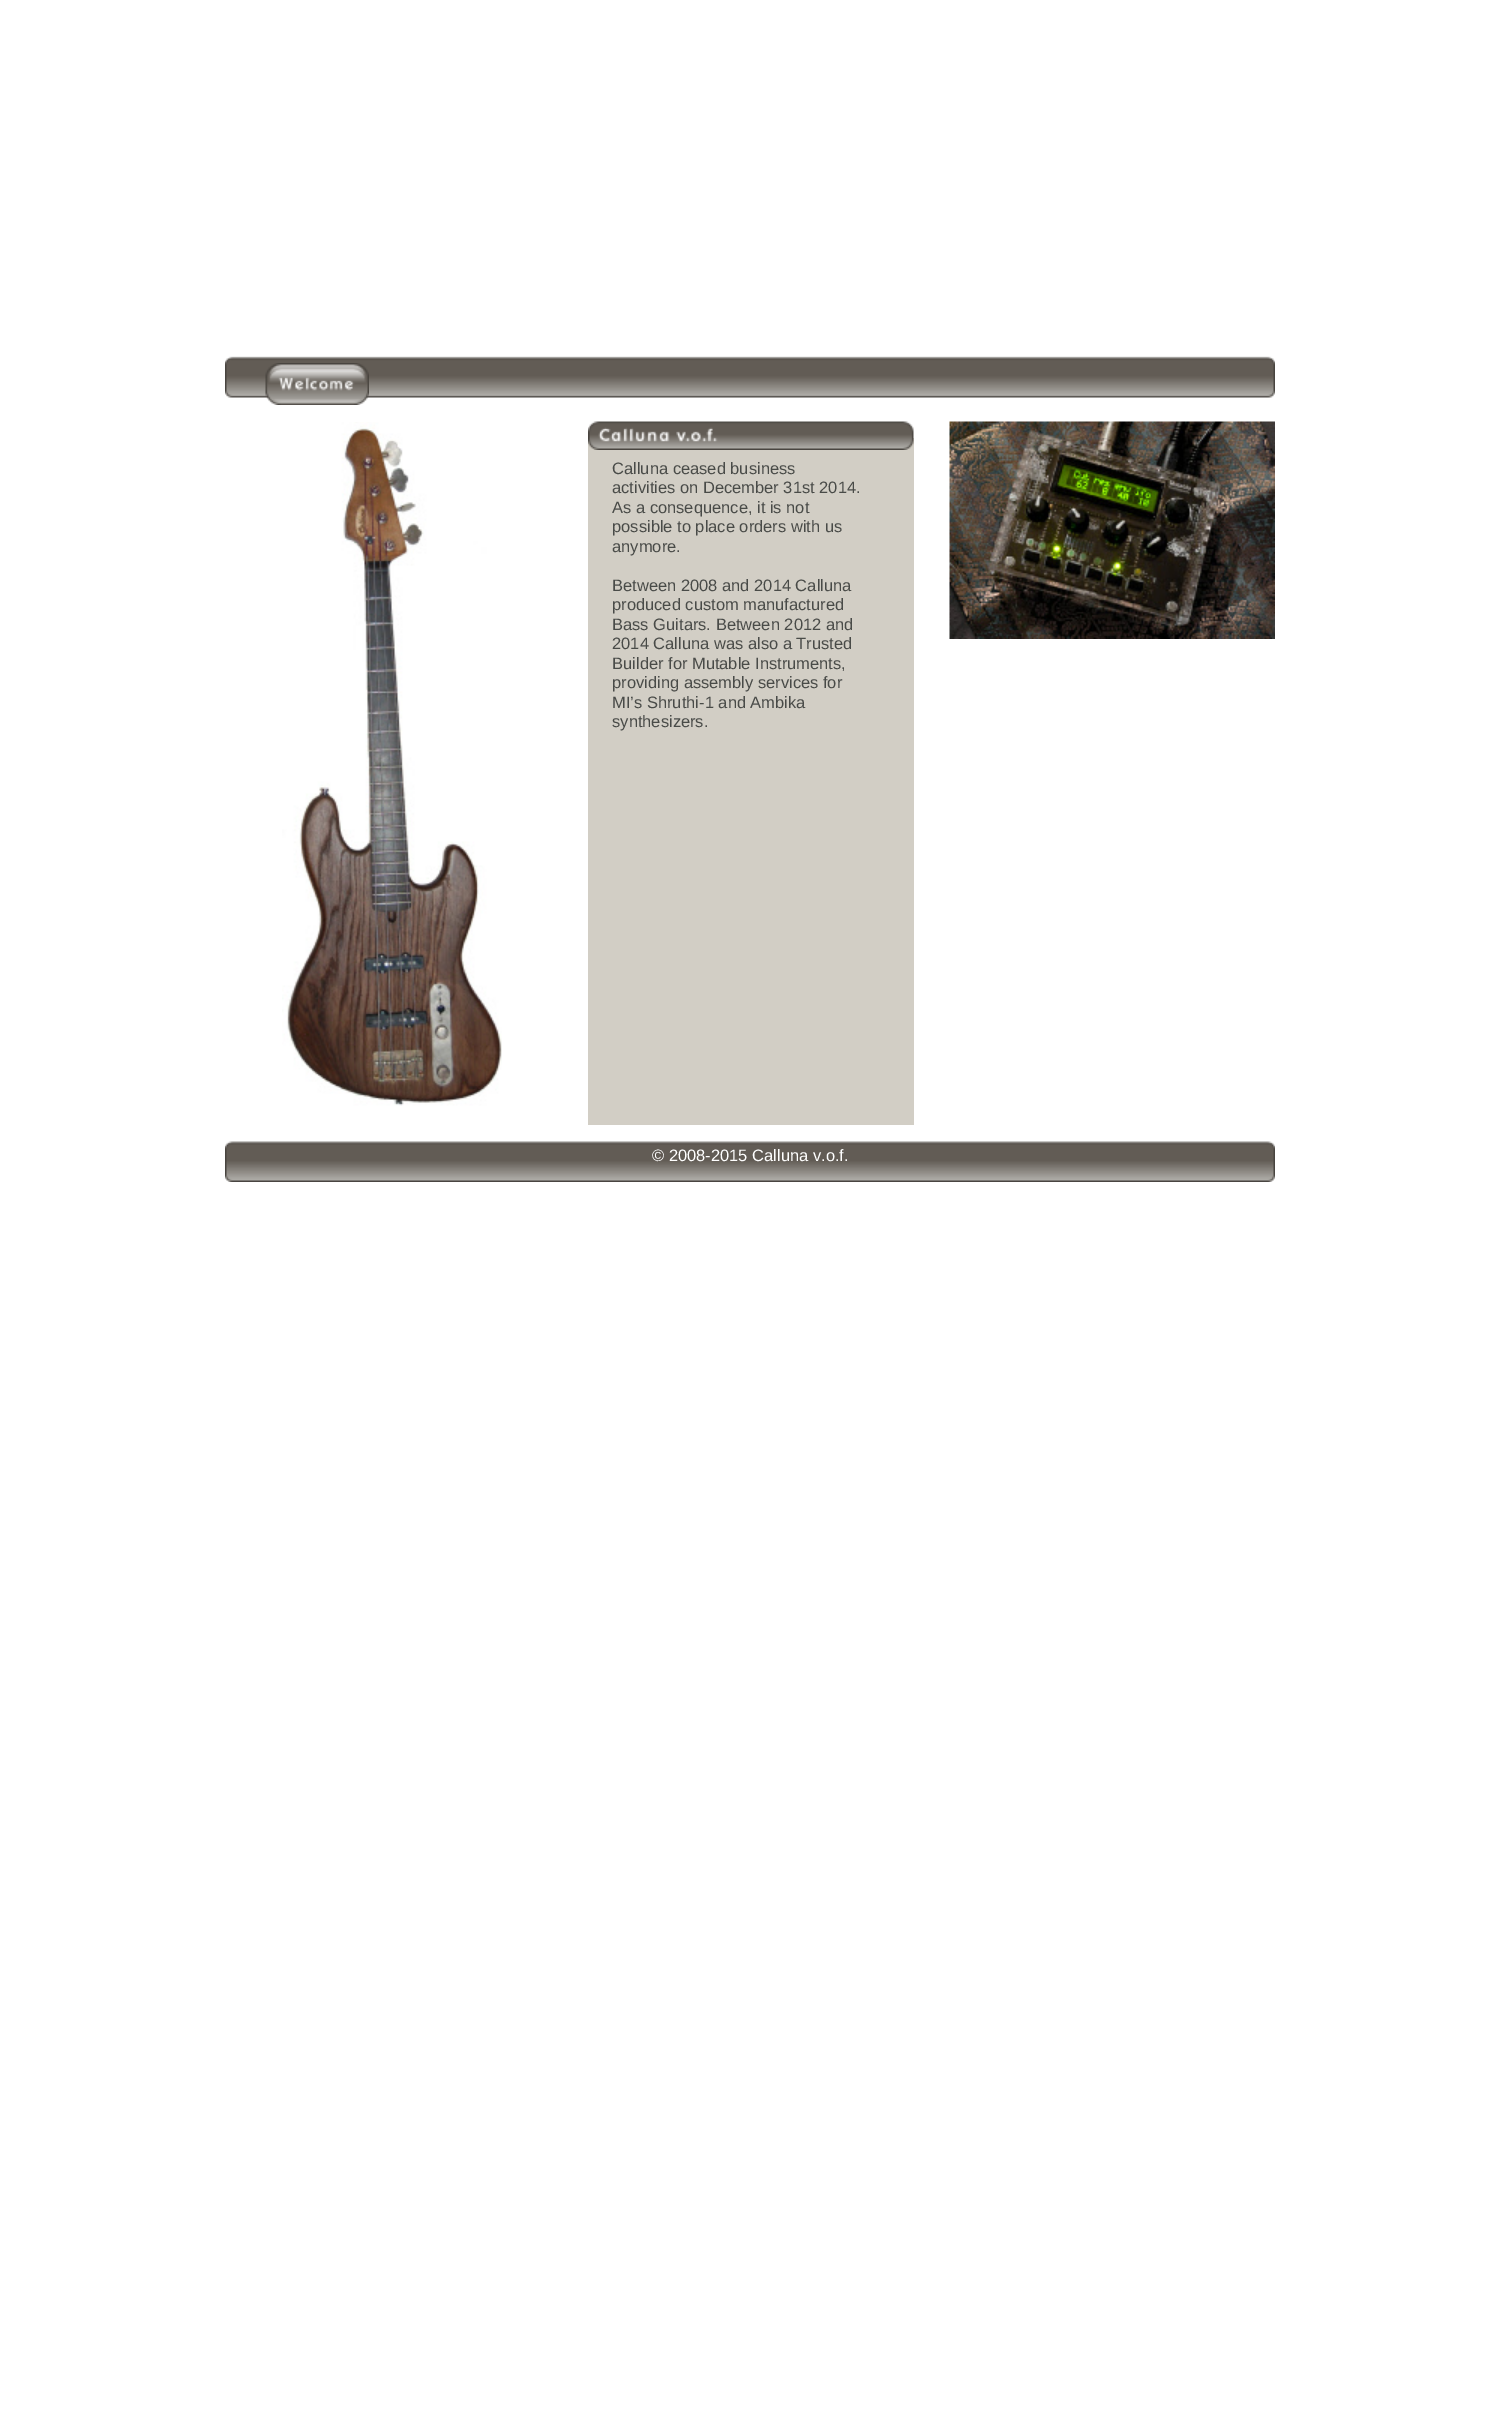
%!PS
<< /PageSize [1499 2434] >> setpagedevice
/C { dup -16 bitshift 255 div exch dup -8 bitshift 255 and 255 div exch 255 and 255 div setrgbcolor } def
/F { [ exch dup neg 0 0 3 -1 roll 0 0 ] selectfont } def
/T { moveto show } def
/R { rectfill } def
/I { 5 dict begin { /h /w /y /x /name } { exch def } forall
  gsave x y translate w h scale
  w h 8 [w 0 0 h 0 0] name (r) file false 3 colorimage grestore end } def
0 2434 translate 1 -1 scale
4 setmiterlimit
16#FFFFFF C
0 0 1499 2434 R
(1.rgb) 225 356 1050 42 I
(2.rgb) 265 363 104 42 I
(3.rgb) 282 422 220 684 I
16#D2CEC5 C
588 438 326 687 R
(4.rgb) 588 421 326 29 I
(5.rgb) 949 421 326 218 I
/LiberationSans-Regular 16.5 F
16#494B48 C
(Calluna ceased business) 612 474 T
(activities on December 31st 2014.) 612 493 T
(As a consequence, it is not) 612 513 T
(possible to place orders with us) 612 532 T
(anymore.) 612 552 T
(Between 2008 and 2014 Calluna) 612 591 T
(produced custom manufactured) 612 610 T
(Bass Guitars. Between 2012 and) 612 630 T
(2014 Calluna was also a Trusted) 612 649 T
(Builder for Mutable Instruments,) 612 669 T
(providing assembly services for) 612 688 T
(MI’s Shruthi-1 and Ambika) 612 708 T
(synthesizers.) 612 727 T
(6.rgb) 225 1141 1050 41 I
16#FFFFFF C
(© 2008-2015 Calluna v.o.f.) 652 1161 T
showpage
